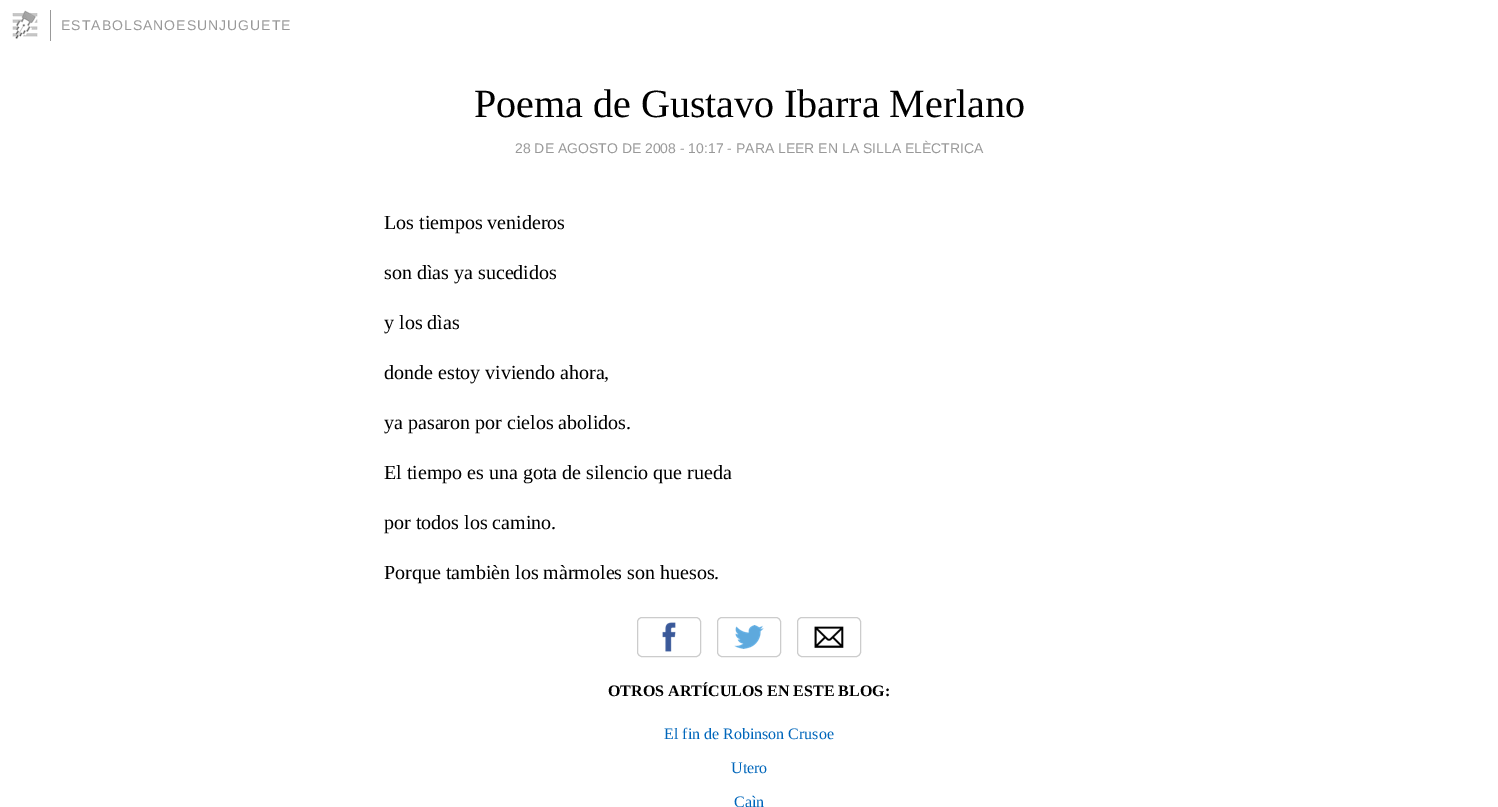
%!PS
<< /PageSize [1498 807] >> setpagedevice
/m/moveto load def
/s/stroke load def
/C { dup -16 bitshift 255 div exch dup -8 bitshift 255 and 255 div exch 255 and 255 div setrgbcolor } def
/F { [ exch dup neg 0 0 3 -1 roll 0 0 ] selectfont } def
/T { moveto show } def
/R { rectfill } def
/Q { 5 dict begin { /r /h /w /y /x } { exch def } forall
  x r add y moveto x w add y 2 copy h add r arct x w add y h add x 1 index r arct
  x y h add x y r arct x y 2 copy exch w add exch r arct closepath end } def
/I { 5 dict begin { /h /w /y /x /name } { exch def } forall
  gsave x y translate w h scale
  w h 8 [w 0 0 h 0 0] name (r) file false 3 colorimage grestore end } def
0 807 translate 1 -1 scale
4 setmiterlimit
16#FFFFFF C
0 0 1498 807 R
(1.rgb) 12 10 26 29 I
16#999999 C
50 10 1 31 R
/LiberationSans-Regular 14 F
61 30 m 1 0 (ESTABOLSANOESUNJUGUETE) ashow
/LiberationSerif-Regular 40 F
16#000000 C
(Poema de Gustavo Ibarra Merlano) 474 117 T
/LiberationSans-Regular 14 F
16#999999 C
(28 DE AGOSTO DE 2008 - 10:17 - PARA LEER EN LA SILLA ELÈCTRICA) 515 153 T
/LiberationSerif-Regular 20 F
16#000000 C
(Los tiempos venideros) 384 229 T
(son dìas ya sucedidos) 384 279 T
(y los dìas) 384 329 T
(donde estoy viviendo ahora,) 384 379 T
(ya pasaron por cielos abolidos.) 384 429 T
(El tiempo es una gota de silencio que rueda) 384 479 T
(por todos los camino.) 384 529 T
(Porque tambièn los màrmoles son huesos.) 384 579 T
(2.rgb) 662 622 14 30 I
16#CCCCCC C
637.5 617.5 63 39 4.5 Q s
(3.rgb) 734 625 30 24 I
717.5 617.5 63 39 4.5 Q s
(4.rgb) 814 626 30 22 I
797.5 617.5 63 39 4.5 Q s
/LiberationSerif-Bold 16 F
16#000000 C
(OTROS ARTÍCULOS EN ESTE BLOG:) 608 696 T
/LiberationSerif-Regular 16 F
16#0066BB C
(El fin de Robinson Crusoe) 664 739 T
(Utero) 731 773 T
(Caìn) 734 807 T
showpage
